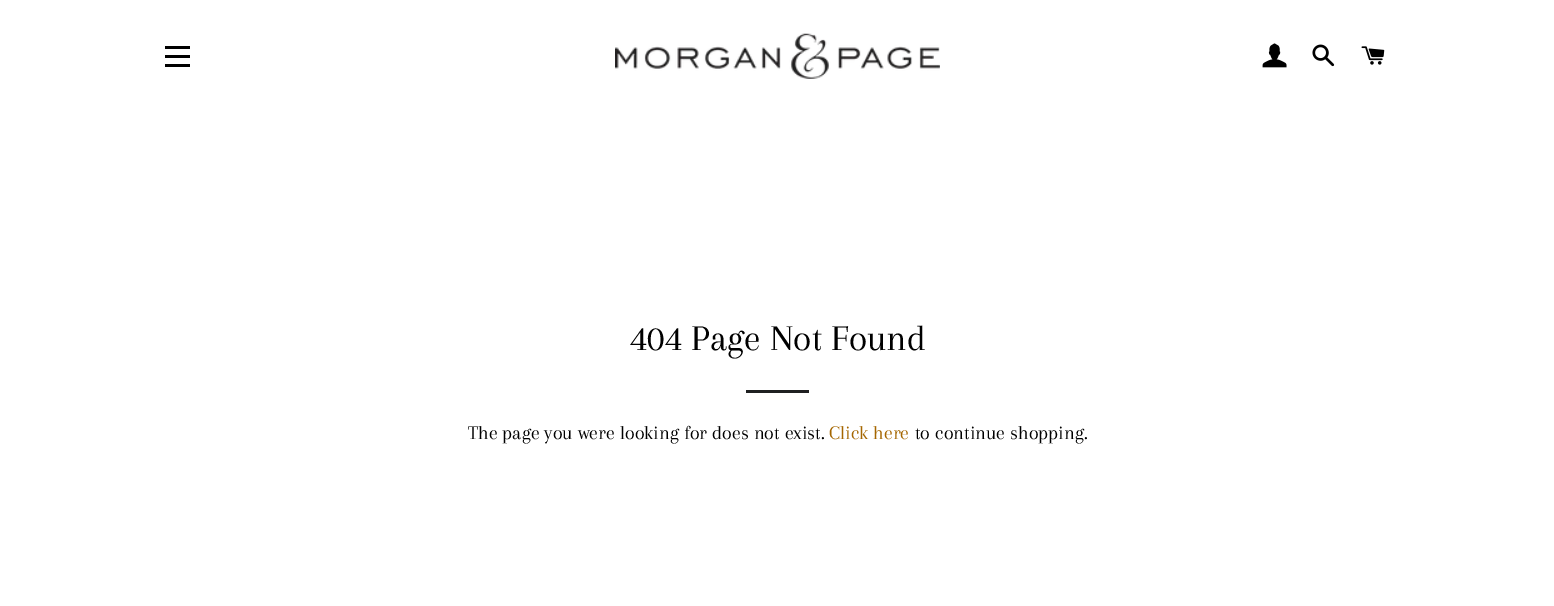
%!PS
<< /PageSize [1554 606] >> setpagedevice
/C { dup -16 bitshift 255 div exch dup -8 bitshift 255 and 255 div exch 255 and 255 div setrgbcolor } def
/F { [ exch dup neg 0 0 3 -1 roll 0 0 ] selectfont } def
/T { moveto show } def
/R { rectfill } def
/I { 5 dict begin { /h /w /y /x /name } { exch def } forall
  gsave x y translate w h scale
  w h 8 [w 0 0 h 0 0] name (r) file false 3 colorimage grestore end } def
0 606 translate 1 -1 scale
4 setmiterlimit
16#FFFFFF C
0 0 1554 606 R
16#000000 C
165 46 25 3 R
165 55 25 3 R
165 64 25 3 R
(1.rgb) 615 33 325 46 I
(2.rgb) 1262 43 25 25 I
(3.rgb) 1312 44 23 23 I
(4.rgb) 1361 46 24 19 I
/Arapey-Regular 37.5 F
(404 Page Not Found) 630 350 T
16#1F2021 C
746 390 63 3 R
/Arapey-Regular 20 F
16#000000 C
(The page you were looking for does not exist.) 468 439 T
16#A56600 C
(Click here) 829 439 T
16#000000 C
(to continue shopping.) 915 439 T
showpage
